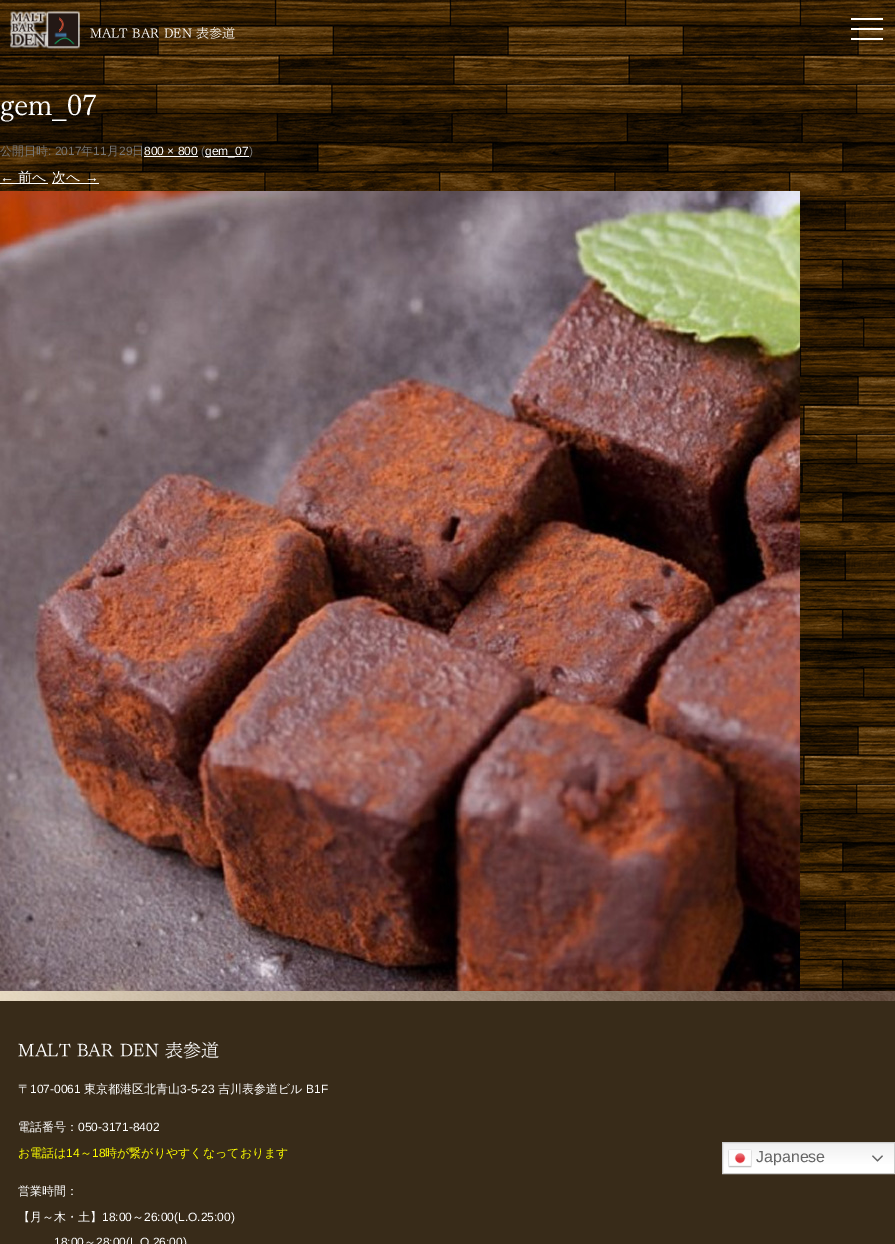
%!PS
<< /PageSize [895 1244] >> setpagedevice
/m/moveto load def
/l/rlineto load def
/z/closepath load def
/q/gsave load def
/Q_/grestore load def
/C { dup -16 bitshift 255 div exch dup -8 bitshift 255 and 255 div exch 255 and 255 div setrgbcolor } def
/F { [ exch dup neg 0 0 3 -1 roll 0 0 ] selectfont } def
/T { moveto show } def
/R { rectfill } def
/I { 5 dict begin { /h /w /y /x /name } { exch def } forall
  gsave x y translate w h scale
  w h 8 [w 0 0 h 0 0] name (r) file false 3 colorimage grestore end } def
0 1244 translate 1 -1 scale
4 setmiterlimit
16#FFFFFF C
0 0 895 1244 R
(1.rgb) 0 0 895 991 I
(2.rgb) 10 10 70 39 I
/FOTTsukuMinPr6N-Light 13 F
(MALT BAR DEN 表参道) 90 38 T
851 28 32 2 R
851 18 32 2 R
851 38 32 2 R
16#382B19 C
0 1001 895 243 R
q 723 1143 m 171 0 l 0 30 l -171 0 l z clip newpath
<< /ShadingType 2 /ColorSpace /DeviceRGB /Coords [809 1142 809 1174] /Extend [true true] /Function << /FunctionType 3 /Domain [0 1] /Functions [<< /FunctionType 2 /Domain [0 1] /C0 [.937 .937 .937] /C1 [1 1 1] /N 1 >> << /FunctionType 2 /Domain [0 1] /C0 [1 1 1] /C1 [1 1 1] /N 1 >>] /Bounds [.7] /Encode [0 1 0 1] >> >> shfill Q_
16#CCCCCC C
722.5 1142.5 172 31 rectstroke
(3.rgb) 728 1149 24 19 I
/LiberationSans-Regular 16 F
16#666666 C
(Japanese) 756 1162 T
(4.rgb) 872 1155 11 7 I
/FOTTsukuMinPr6N-Light 29 F
16#FFFFFF C
(gem_07) 0 116 T
/WenQuanYiZenHei-Medium 12 F
16#757575 C
(公開日時) 0 155 T
/LiberationSans-Regular 12 F
(: 2017) 48 155 T
/WenQuanYiZenHei-Medium 12 F
(年) 81 155 T
/LiberationSans-Regular 12 F
(11) 93 155 T
/WenQuanYiZenHei-Medium 12 F
(月) 107 155 T
/LiberationSans-Regular 12 F
(29) 119 155 T
/WenQuanYiZenHei-Medium 12 F
(日) 132 155 T
/LiberationSans-Regular 12 F
16#FFFFFF C
(800 × 800) 144 155 T
144 156 54 1 R
16#757575 C
(\() 201 155 T
16#FFFFFF C
205 156 44 1 R
(gem_07) 205 155 T
16#757575 C
(\)) 249 155 T
/LiberationSans-Regular 14 F
16#FFFFFF C
(←) 0 182 T
0 183 48 1 R
/WenQuanYiZenHei-Medium 14 F
(前へ) 18 182 T
52 183 47 1 R
(次へ) 52 182 T
/LiberationSans-Regular 14 F
(→) 85 182 T
(5.rgb) 0 191 800 800 I
(6.rgb) 0 991 895 10 I
/FOTTsukuMinPr6N-Light 18 F
(MALT BAR DEN 表参道) 18 1057 T
/WenQuanYiZenHei-Medium 12 F
(〒) 18 1093 T
/LiberationSans-Regular 12 F
(107-0061) 30 1093 T
/WenQuanYiZenHei-Medium 12 F
(東京都港区北青山) 84 1093 T
/LiberationSans-Regular 12 F
(3-5-23) 180 1093 T
/WenQuanYiZenHei-Medium 12 F
(吉川表参道ビル) 218 1093 T
/LiberationSans-Regular 12 F
(B1F) 306 1093 T
/WenQuanYiZenHei-Medium 12 F
(電話番号：) 18 1131 T
/LiberationSans-Regular 12 F
(050-3171-8402) 78 1131 T
/WenQuanYiZenHei-Medium 12 F
16#FFFF00 C
(お電話は) 18 1157 T
/LiberationSans-Regular 12 F
(14) 66 1157 T
/WenQuanYiZenHei-Medium 12 F
(～) 80 1157 T
/LiberationSans-Regular 12 F
(18) 92 1157 T
/WenQuanYiZenHei-Medium 12 F
(時が繋がりやすくなっております) 105 1157 T
16#FFFFFF C
(営業時間：) 18 1195 T
(【月～木・土】) 18 1221 T
/LiberationSans-Regular 12 F
(18:00) 102 1221 T
/WenQuanYiZenHei-Medium 12 F
(～) 132 1221 T
/LiberationSans-Regular 12 F
(26:00\(L.O.25:00\)) 144 1221 T
(18:00) 54 1246 T
/WenQuanYiZenHei-Medium 12 F
(～) 84 1246 T
/LiberationSans-Regular 12 F
(28:00\(L.O.26:00\)) 96 1246 T
showpage
